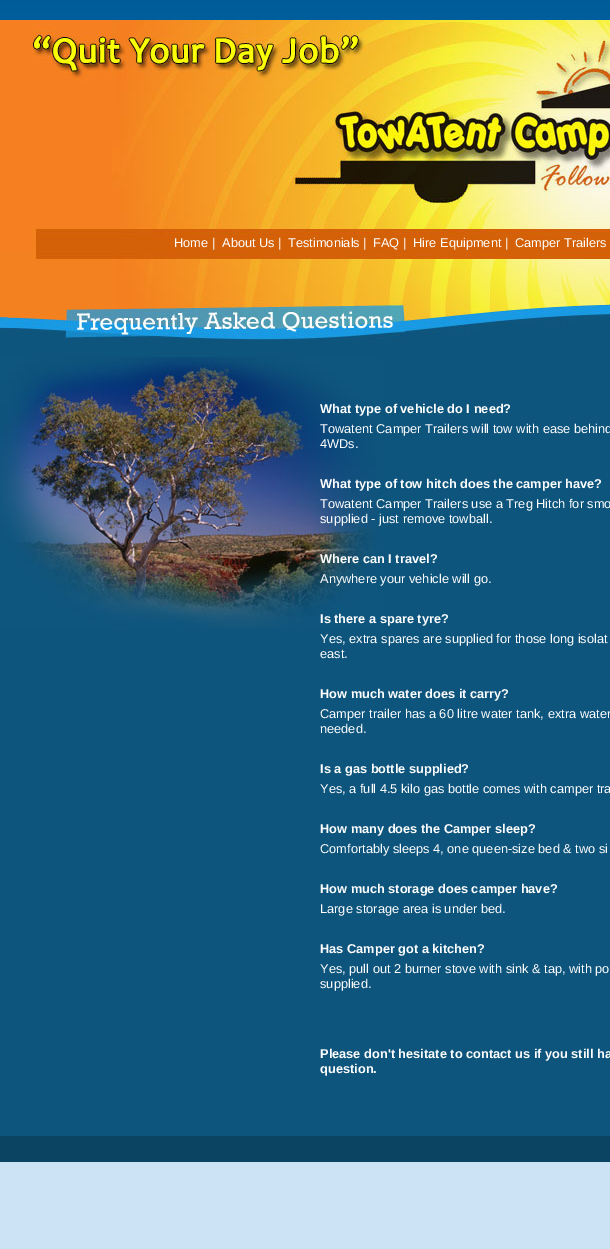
%!PS
<< /PageSize [610 1249] >> setpagedevice
/C { dup -16 bitshift 255 div exch dup -8 bitshift 255 and 255 div exch 255 and 255 div setrgbcolor } def
/F { [ exch dup neg 0 0 3 -1 roll 0 0 ] selectfont } def
/T { moveto show } def
/R { rectfill } def
/I { 5 dict begin { /h /w /y /x /name } { exch def } forall
  gsave x y translate w h scale
  w h 8 [w 0 0 h 0 0] name (r) file false 3 colorimage grestore end } def
0 1249 translate 1 -1 scale
4 setmiterlimit
16#CCE2F5 C
0 0 610 1249 R
(1.rgb) 0 0 610 20 I
16#0E557D C
0 357 610 779 R
(2.rgb) 0 20 610 232 I
/LiberationSans-Regular 12.8 F
16#FFFFFF C
(Home |) 174 247 T
(About Us |) 222 247 T
(Testimonials |) 288 247 T
(FAQ |) 373 247 T
(Hire Equipment |) 413 247 T
(Camper Trailers) 515 247 T
(3.rgb) 0 252 610 105 I
(4.rgb) 0 357 377 272 I
/LiberationSans-Bold 12.8 F
(What type of vehicle do I need?) 320 413 T
/LiberationSans-Regular 12.8 F
(Towatent Camper Trailers will tow with ease behind) 320 433 T
(4WDs.) 320 448 T
/LiberationSans-Bold 12.8 F
(What type of tow hitch does the camper have?) 320 488 T
/LiberationSans-Regular 12.8 F
(Towatent Camper Trailers use a Treg Hitch for smo) 320 508 T
(supplied - just remove towball.) 320 523 T
/LiberationSans-Bold 12.8 F
(Where can I travel?) 320 563 T
/LiberationSans-Regular 12.8 F
(Anywhere your vehicle will go.) 320 583 T
/LiberationSans-Bold 12.8 F
(Is there a spare tyre?) 320 623 T
/LiberationSans-Regular 12.8 F
(Yes, extra spares are supplied for those long isolat) 320 643 T
(east.) 320 658 T
/LiberationSans-Bold 12.8 F
(How much water does it carry?) 320 698 T
/LiberationSans-Regular 12.8 F
(Camper trailer has a 60 litre water tank, extra water) 320 718 T
(needed.) 320 733 T
/LiberationSans-Bold 12.8 F
(Is a gas bottle supplied?) 320 773 T
/LiberationSans-Regular 12.8 F
(Yes, a full 4.5 kilo gas bottle comes with camper tra) 320 793 T
/LiberationSans-Bold 12.8 F
(How many does the Camper sleep?) 320 833 T
/LiberationSans-Regular 12.8 F
(Comfortably sleeps 4, one queen-size bed & two si) 320 853 T
/LiberationSans-Bold 12.8 F
(How much storage does camper have?) 320 893 T
/LiberationSans-Regular 12.8 F
(Large storage area is under bed.) 320 913 T
/LiberationSans-Bold 12.8 F
(Has Camper got a kitchen?) 320 953 T
/LiberationSans-Regular 12.8 F
(Yes, pull out 2 burner stove with sink & tap, with po) 320 973 T
(supplied.) 320 988 T
/LiberationSans-Bold 12.8 F
(Please don't hesitate to contact us if you still ha) 320 1058 T
(question.) 320 1073 T
16#0B4363 C
0 1136 610 26 R
showpage
